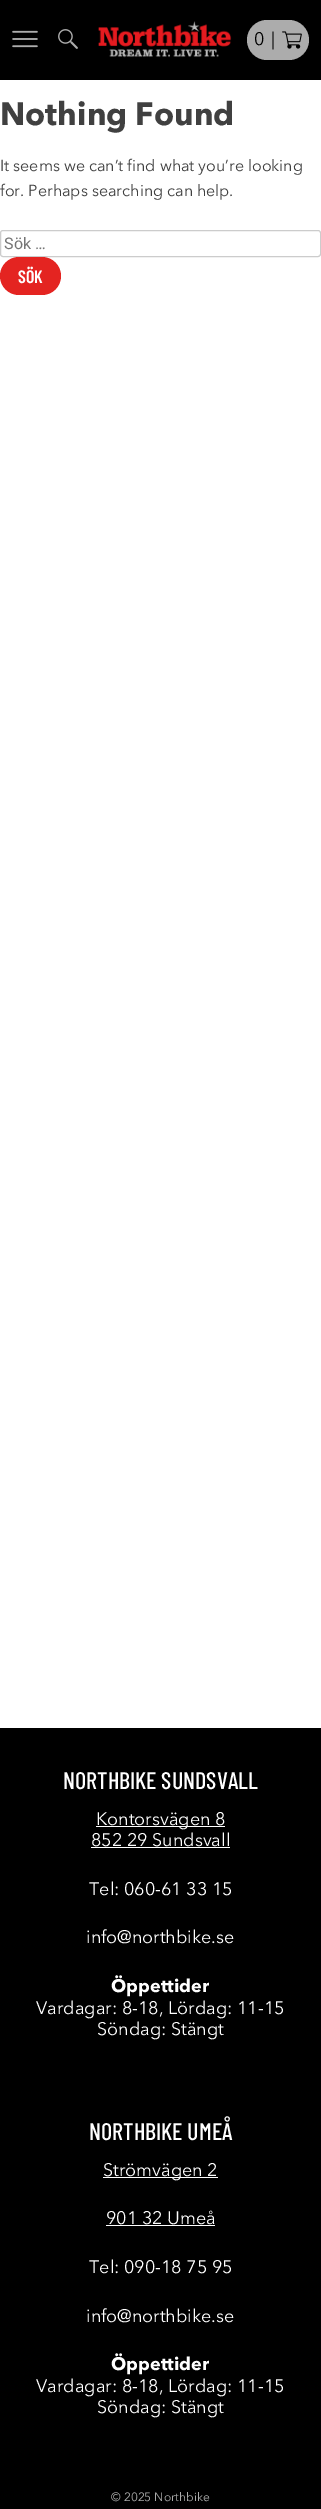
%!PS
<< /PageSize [321 2509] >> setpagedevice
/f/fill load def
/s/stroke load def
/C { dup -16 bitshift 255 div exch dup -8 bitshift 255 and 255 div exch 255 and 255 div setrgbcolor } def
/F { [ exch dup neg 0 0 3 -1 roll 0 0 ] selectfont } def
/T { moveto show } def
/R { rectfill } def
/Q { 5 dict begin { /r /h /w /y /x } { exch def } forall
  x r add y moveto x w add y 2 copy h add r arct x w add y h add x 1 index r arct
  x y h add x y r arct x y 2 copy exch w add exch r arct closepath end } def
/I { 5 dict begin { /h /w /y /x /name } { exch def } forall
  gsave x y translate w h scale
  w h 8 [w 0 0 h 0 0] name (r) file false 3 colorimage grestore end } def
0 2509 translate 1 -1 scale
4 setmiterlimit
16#FFFFFF C
0 0 321 2509 R
16#000000 C
0 0 321 80 R
(1.rgb) 12 30 26 18 I
(2.rgb) 58 29 20 20 I
(3.rgb) 98 21 134 37 I
16#ACACAC C
247 20 62 40 20 Q f
/AvenirNext-Regular 18 F
16#000000 C
(0) 254 45 T
(|) 271 45 T
(4.rgb) 282 31 20 18 I
/AvenirNext-Bold 32 F
16#404040 C
(Nothing Found) 0 125 T
/AvenirNext-Regular 16 F
(It seems we can’t find what you’re looking) 0 171 T
(for. Perhaps searching can help.) 0 196 T
16#CCCCCC C
.5 230.5 320 26 2.5 Q s
/Roboto-Regular 16 F
16#757575 C
(Sök …) 4 249 T
16#E42421 C
0 257 61 38 19 Q f
/BarlowCondensed-SemiBold 18 F
16#FFFFFF C
(SÖK) 18 283 T
16#000000 C
0 1728 321 781 R
/BarlowCondensed-Medium 24 F
16#FFFFFF C
(NORTHBIKE SUNDSVALL) 63 1789 T
96 1826 129 1 R
/AvenirNext-Regular 18 F
(Kontorsvägen 8) 96 1825 T
(852 29 Sundsvall) 91 1846 T
91 1847 139 1 R
(Tel: 060-61 33 15) 89 1895 T
(info@northbike.se) 86 1943 T
/AvenirNext-Bold 18 F
(Öppettider) 111 1992 T
/AvenirNext-Regular 18 F
(Vardagar: 8-18, Lördag: 11-15) 36 2014 T
(Söndag: Stängt) 97 2035 T
/BarlowCondensed-Medium 24 F
(NORTHBIKE UMEÅ) 89 2140 T
103 2177 115 1 R
/AvenirNext-Regular 18 F
(Strömvägen 2) 103 2176 T
(901 32 Umeå) 106 2224 T
106 2225 109 1 R
(Tel: 090-18 75 95) 89 2273 T
(info@northbike.se) 86 2322 T
/AvenirNext-Bold 18 F
(Öppettider) 111 2370 T
/AvenirNext-Regular 18 F
(Vardagar: 8-18, Lördag: 11-15) 36 2392 T
(Söndag: Stängt) 97 2413 T
/AvenirNext-Regular 12 F
16#ACACAC C
(© 2025 Northbike) 111 2501 T
showpage
